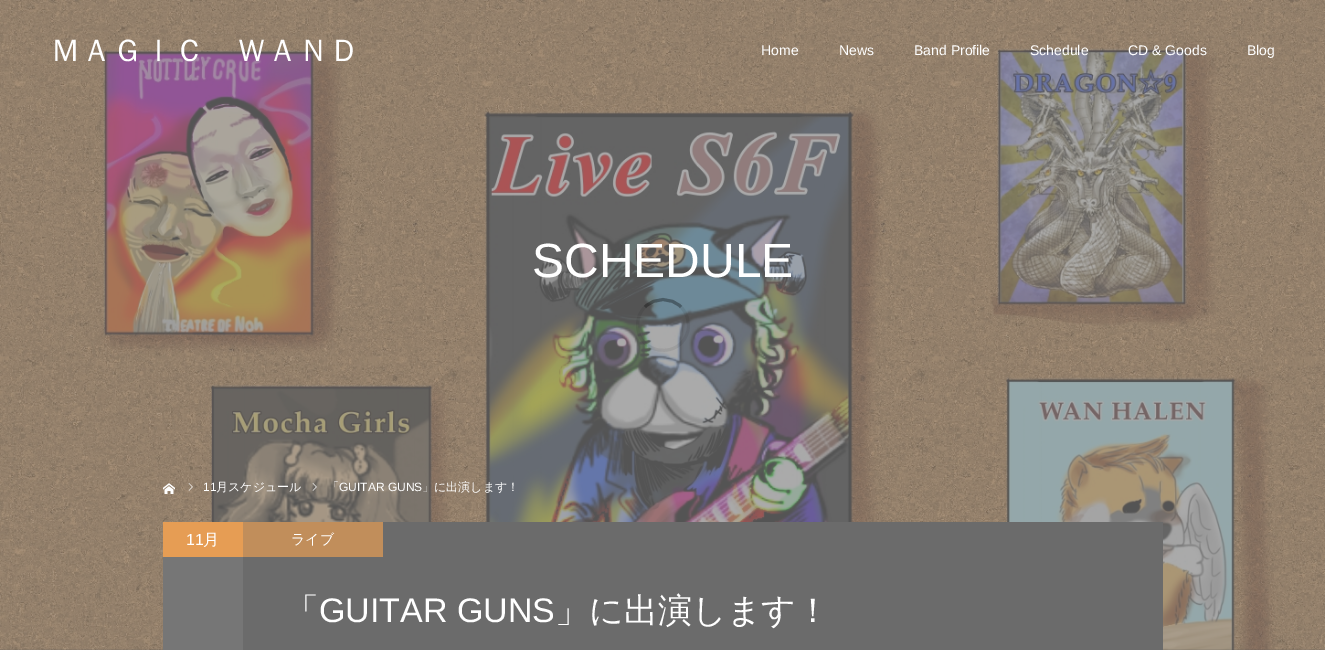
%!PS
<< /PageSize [1325 650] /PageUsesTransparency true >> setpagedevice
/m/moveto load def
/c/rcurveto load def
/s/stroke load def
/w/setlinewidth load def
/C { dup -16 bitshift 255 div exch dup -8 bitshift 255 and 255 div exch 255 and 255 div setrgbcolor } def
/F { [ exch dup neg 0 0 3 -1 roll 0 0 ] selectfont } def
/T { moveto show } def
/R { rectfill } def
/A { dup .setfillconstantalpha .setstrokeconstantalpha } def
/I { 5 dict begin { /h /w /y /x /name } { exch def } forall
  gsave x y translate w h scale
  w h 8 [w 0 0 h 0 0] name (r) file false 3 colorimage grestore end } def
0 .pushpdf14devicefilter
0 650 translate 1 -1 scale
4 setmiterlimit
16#FFFFFF C
0 0 1325 650 R
(1.rgb) 0 0 1325 650 I
/WenQuanYiZenHei-Medium 31 F
(ＭＡＧＩＣ　ＷＡＮＤ) 50 61 T
/LiberationSans-Regular 14 F
(Home) 761 55 T
(News) 839 55 T
(Band Profile) 914 55 T
(Schedule) 1030 55 T
(CD & Goods) 1128 55 T
(Blog) 1247 55 T
/LiberationSans-Regular 48 F
(SCHEDULE) 532 277 T
(2.rgb) 163 483 12 11 I
(3.rgb) 188 483 5 8 I
/LiberationSans-Regular 12 F
(11) 203 491 T
/WenQuanYiZenHei-Medium 12 F
(月スケジュール) 216 491 T
(4.rgb) 312 483 5 8 I
(「) 327 491 T
/LiberationSans-Regular 12 F
(GUITAR GUNS) 339 491 T
/WenQuanYiZenHei-Medium 12 F
(」に出演します！) 422 491 T
16#6B6B6B C
243 522 920 128 R
16#767676 C
163 557 80 93 R
16#E69D54 C
163 522 80 35 R
/LiberationSans-Regular 16 F
16#FFFFFF C
(11) 186 545 T
/WenQuanYiZenHei-Medium 16 F
(月) 203 545 T
16#C18E5B C
243 522 140 35 R
/WenQuanYiZenHei-Medium 14 F
16#FFFFFF C
(ライブ) 291 544 T
/WenQuanYiZenHei-Medium 34 F
(「) 285 622 T
/LiberationSans-Regular 34 F
(GUITAR GUNS) 319 622 T
/WenQuanYiZenHei-Medium 34 F
(」に出演します！) 555 622 T
0.33 A
16#000000 C
3 w
645 307 m 10 -10 26 -10 36 0 c s
0.07 A
681 307 m 6 6 8.5 14.5 7 23 c -6 30 -50.5 25.5 -50.5 -5 c 0 -6.5 2.5 -13.5 7.5 -18 c s
.poppdf14devicefilter showpage
